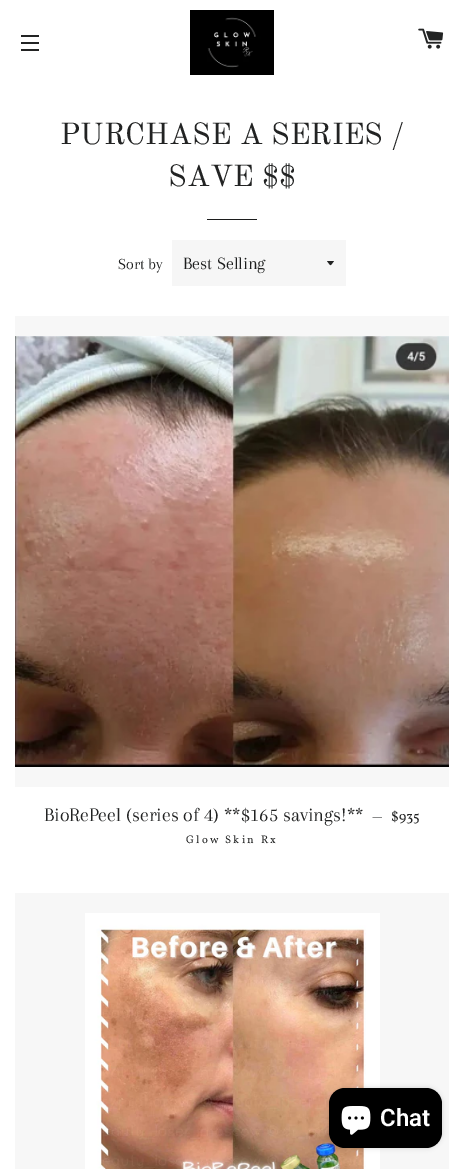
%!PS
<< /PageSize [464 1169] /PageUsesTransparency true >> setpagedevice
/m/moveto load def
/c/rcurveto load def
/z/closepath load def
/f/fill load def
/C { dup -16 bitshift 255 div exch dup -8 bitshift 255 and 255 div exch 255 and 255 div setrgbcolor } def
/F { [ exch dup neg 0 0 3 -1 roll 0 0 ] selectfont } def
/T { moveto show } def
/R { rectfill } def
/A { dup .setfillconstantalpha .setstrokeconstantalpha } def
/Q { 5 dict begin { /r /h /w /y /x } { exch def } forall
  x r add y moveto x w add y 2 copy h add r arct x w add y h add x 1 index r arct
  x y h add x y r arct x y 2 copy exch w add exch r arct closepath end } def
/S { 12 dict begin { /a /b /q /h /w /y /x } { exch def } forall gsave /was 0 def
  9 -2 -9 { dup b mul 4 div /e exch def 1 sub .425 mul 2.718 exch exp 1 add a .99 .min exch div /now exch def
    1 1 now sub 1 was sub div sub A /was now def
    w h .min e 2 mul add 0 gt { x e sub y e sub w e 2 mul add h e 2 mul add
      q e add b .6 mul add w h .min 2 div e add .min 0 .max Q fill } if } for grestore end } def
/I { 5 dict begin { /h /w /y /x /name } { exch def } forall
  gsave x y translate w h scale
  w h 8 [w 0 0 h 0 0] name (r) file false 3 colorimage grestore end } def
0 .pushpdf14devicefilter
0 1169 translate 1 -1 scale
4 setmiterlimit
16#FFFFFF C
0 0 464 1169 R
16#222323 C
21 35 18 2 R
21 42 18 2 R
21 49 18 2 R
(1.rgb) 190 10 84 65 I
(2.rgb) 418 28 26 21 I
/OldStandardTT-Regular 30 F
(PURCHASE A SERIES /) 60 144 T
(SAVE $$) 168 186 T
16#1C1D1D C
207 219 50 1 R
/Arapey-Regular 16 F
16#222323 C
(Sort by) 118 269 T
16#F6F6F6 C
172 240 174 46 R
16#222323 C
327 261 m 4.5 5.5 2.5 5.5 7 0 c z f
/Arapey-Regular 18 F
16#1C1D1D C
(Best Selling) 183 269 T
16#F7F7F7 C
15 316 434 471 R
(3.rgb) 15 336 434 431 I
/Arapey-Regular 20 F
16#222323 C
(BioRePeel \(series of 4\) **$165 savings!**) 44 821 T
/Arapey-Regular 16 F
(—) 372 821 T
/Vollkorn-Regular 14 F
($935) 391 821 T
/Vollkorn-Regular 11 F
186 843 m 2.25 0 (Glow Skin Rx) ashow
16#F7F7F7 C
15 893 434 276 R
(4.rgb) 85 913 295 256 I
16#000000 C
329 1088 113 60 16 2.5 .15 S
329 1088 113 60 16 Q f
(5.rgb) 341 1106 30 29 I
/Roboto-SemiBold 24 F
16#FFFFFF C
(Chat) 380 1126 T
.poppdf14devicefilter showpage
